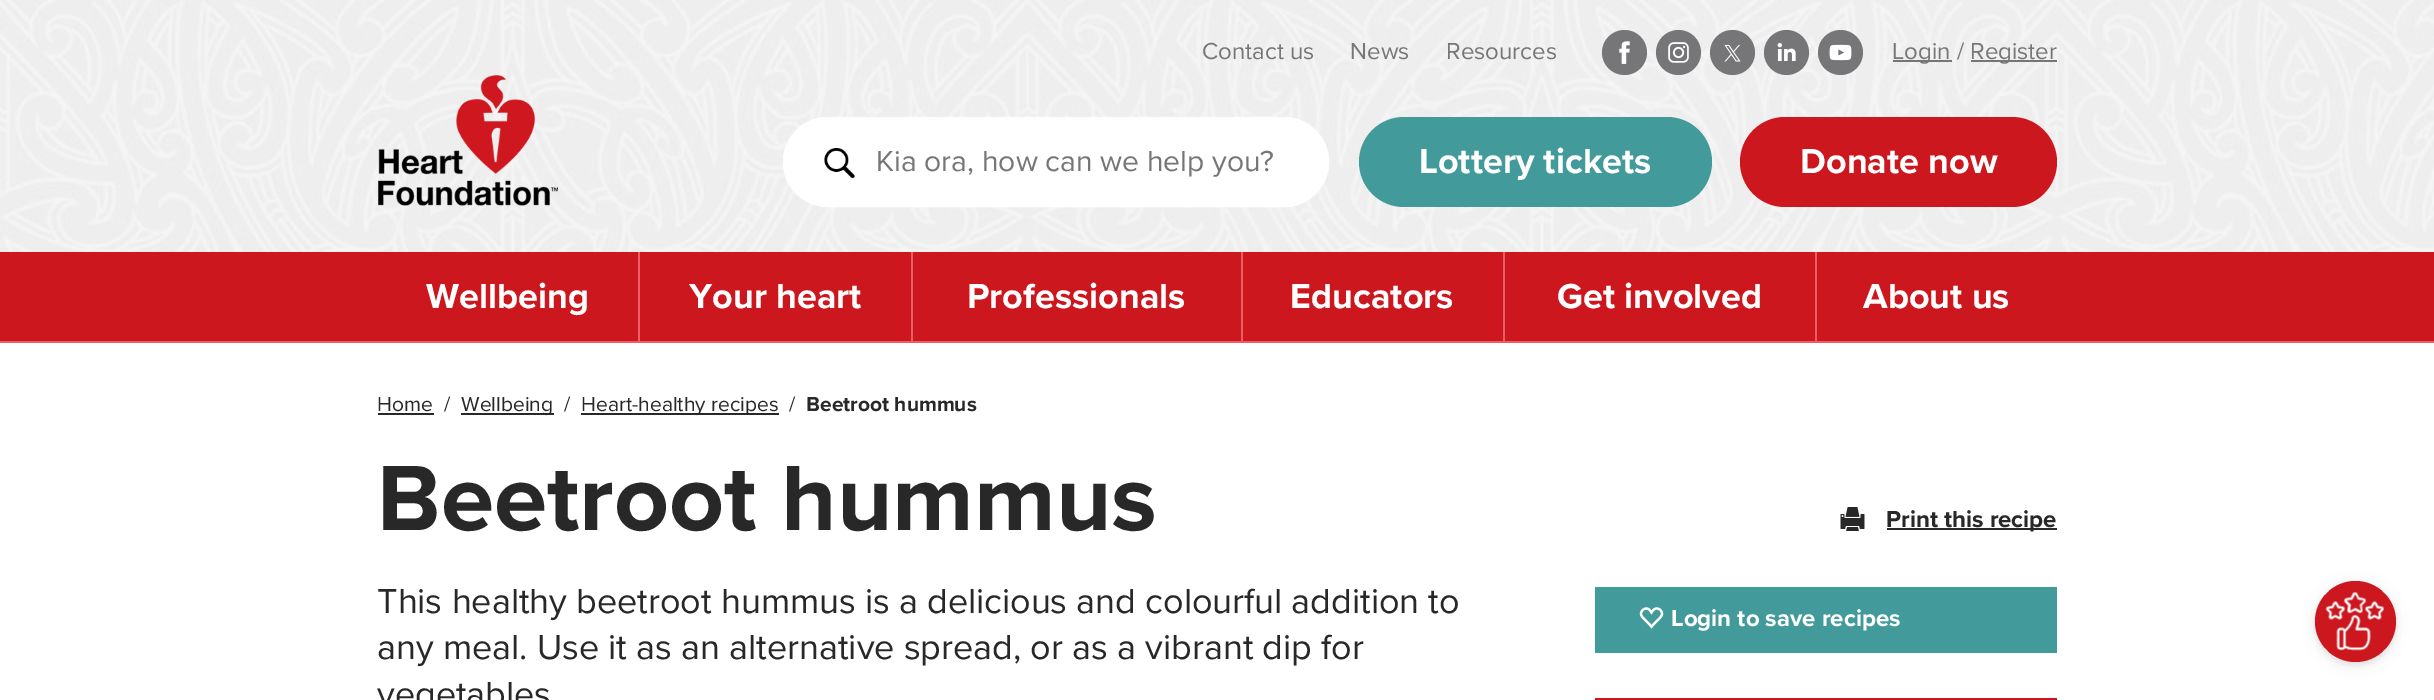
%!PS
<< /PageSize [2434 700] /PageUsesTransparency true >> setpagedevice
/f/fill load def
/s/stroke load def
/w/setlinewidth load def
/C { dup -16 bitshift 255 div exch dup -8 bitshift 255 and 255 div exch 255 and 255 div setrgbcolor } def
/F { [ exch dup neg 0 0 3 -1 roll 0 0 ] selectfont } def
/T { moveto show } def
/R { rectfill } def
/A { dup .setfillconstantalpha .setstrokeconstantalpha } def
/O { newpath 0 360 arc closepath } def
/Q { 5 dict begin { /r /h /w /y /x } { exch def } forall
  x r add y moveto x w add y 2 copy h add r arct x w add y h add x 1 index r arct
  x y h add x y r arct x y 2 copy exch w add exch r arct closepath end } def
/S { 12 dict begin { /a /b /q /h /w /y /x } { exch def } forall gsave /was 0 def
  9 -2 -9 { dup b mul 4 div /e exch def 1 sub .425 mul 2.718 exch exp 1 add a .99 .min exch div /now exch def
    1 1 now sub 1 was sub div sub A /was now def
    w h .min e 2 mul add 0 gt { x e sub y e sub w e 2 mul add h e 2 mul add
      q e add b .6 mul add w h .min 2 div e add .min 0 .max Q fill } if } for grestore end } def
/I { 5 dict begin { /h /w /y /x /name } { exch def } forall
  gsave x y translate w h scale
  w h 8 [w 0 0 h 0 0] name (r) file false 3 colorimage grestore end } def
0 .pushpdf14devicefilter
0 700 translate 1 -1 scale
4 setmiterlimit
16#FFFFFF C
0 0 2434 700 R
(1.rgb) 0 0 2434 252 I
/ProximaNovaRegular-Regular 24 F
16#767678 C
(Contact us) 1202 59 T
(News) 1350 59 T
(Resources) 1446 59 T
1624.5 52.5 22.5 O f
(2.rgb) 1619 41 11 23 I
1678.5 52.5 22.5 O f
(3.rgb) 1668 42 21 21 I
1732.5 52.5 22.5 O f
(4.rgb) 1724 44 17 18 I
1786.5 52.5 22.5 O f
(5.rgb) 1777 43 19 18 I
1840.5 52.5 22.5 O f
(6.rgb) 1829 44 23 17 I
1893 60 59 2 R
(Login /) 1892 59 T
1971 60 86 2 R
(Register) 1970 59 T
(7.rgb) 378 75 180 131 I
16#FFFFFF C
783 117 546 90 45 Q f
(8.rgb) 824 148 31 31 I
3 w
784.5 118.5 543 87 43.5 Q s
/ProximaNovaRegular-Regular 30 F
16#767678 C
(Kia ora, how can we help you?) 876 171 T
16#439A9A C
1359 117 353 90 45 Q f
/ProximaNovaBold-Bold 36 F
16#FFFFFF C
(Lottery tickets) 1419 173 T
16#CD171E C
1740 117 317 90 45 Q f
16#FFFFFF C
(Donate now) 1800 173 T
16#CD171E C
0 252 2434 89 R
16#ED5D63 C
0 341 2434 2 R
16#FFFFFF C
(Wellbeing) 426 308 T
16#ED5D63 C
638 252 2 89 R
16#FFFFFF C
(Your heart) 689 308 T
16#ED5D63 C
911 252 2 89 R
16#FFFFFF C
(Professionals) 967 308 T
16#ED5D63 C
1241 252 2 89 R
16#FFFFFF C
(Educators) 1290 308 T
16#ED5D63 C
1503 252 2 89 R
16#FFFFFF C
(Get involved) 1557 308 T
16#ED5D63 C
1815 252 2 89 R
16#FFFFFF C
(About us) 1863 308 T
/ProximaNovaRegular-Regular 21 F
16#282828 C
(Home) 377 411 T
378 413 56 2 R
(/) 444 411 T
461 413 93 2 R
(Wellbeing) 461 411 T
(/) 564 411 T
581 413 198 2 R
(Heart-healthy recipes) 581 411 T
(/) 789 411 T
/ProximaNovaBold-Bold 21 F
(Beetroot hummus) 806 411 T
/ProximaNovaBold-Bold 96 F
(Beetroot hummus) 377 530 T
/ProximaNovaRegular-Regular 36 F
(This healthy beetroot hummus is a delicious and colourful addition to) 377 613 T
(any meal. Use it as an alternative spread, or as a vibrant dip for) 377 659 T
(vegetables) 377 706 T
(9.rgb) 1840 507 25 24 I
1887 528 170 2 R
/ProximaNovaBold-Bold 24 F
(Print this recipe) 1886 527 T
16#439A9A C
1595 587 462 66 R
(10.rgb) 1639 607 25 22 I
16#FFFFFF C
(Login to save recipes) 1671 626 T
16#CD171E C
1595 698 462 2 R
16#000000 C
2315 584 81 81 40.5 3 .08 S
2315 584 81 81 40.5 9 .06 S
16#CD171E C
2355.5 621.5 40.5 O f
(11.rgb) 2325 591 60 60 I
.poppdf14devicefilter showpage
